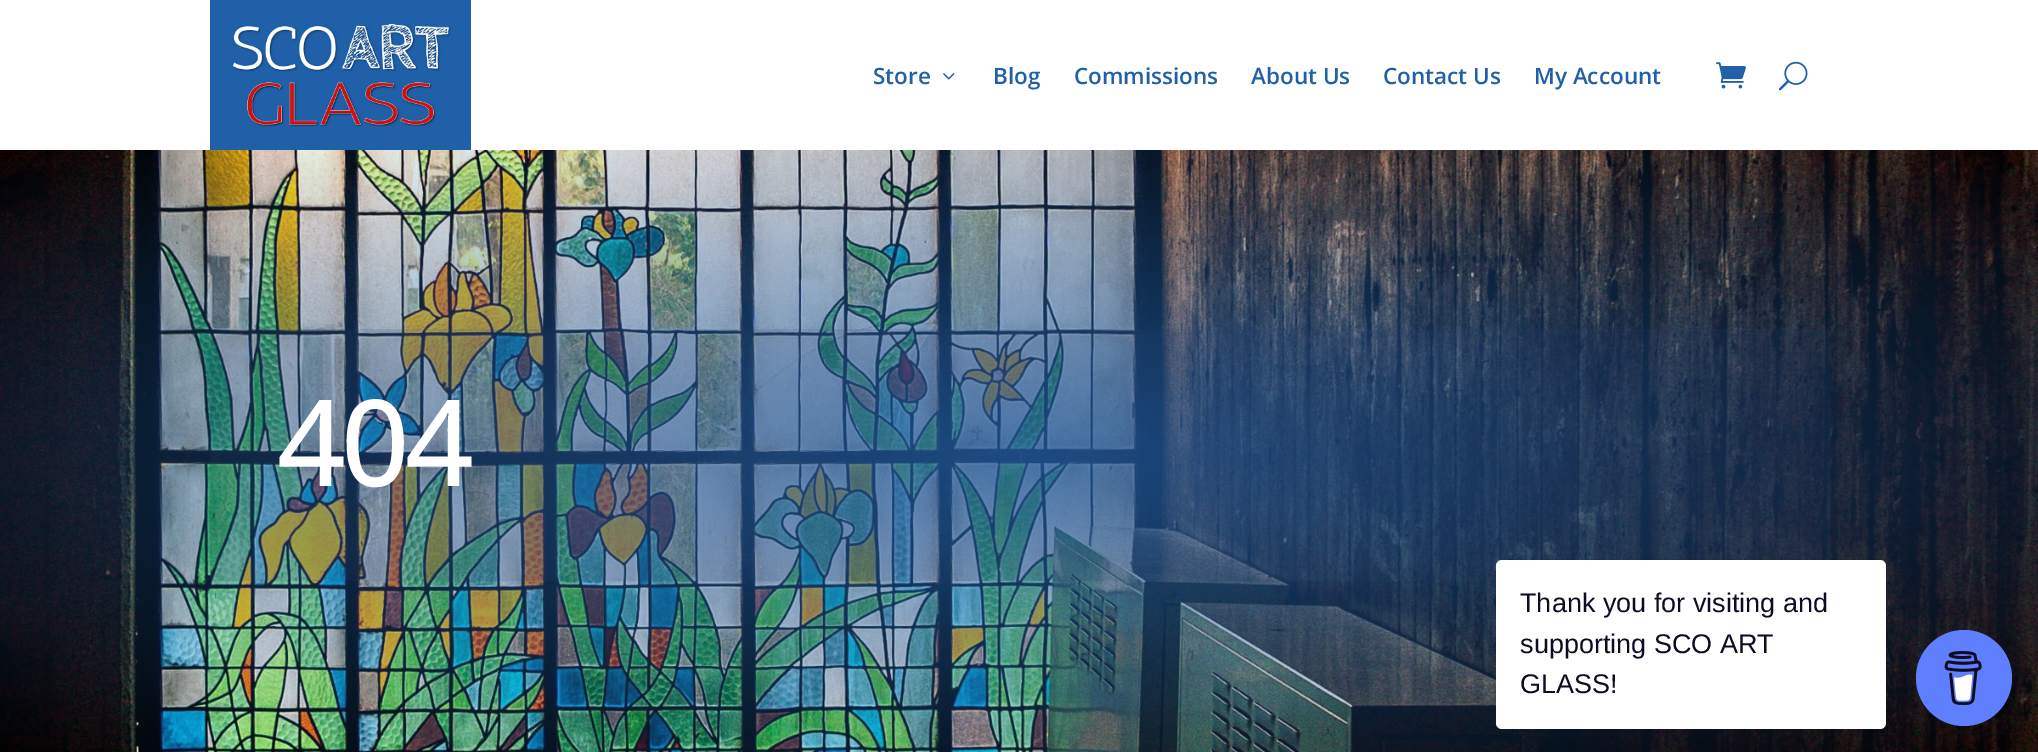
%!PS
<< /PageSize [2038 752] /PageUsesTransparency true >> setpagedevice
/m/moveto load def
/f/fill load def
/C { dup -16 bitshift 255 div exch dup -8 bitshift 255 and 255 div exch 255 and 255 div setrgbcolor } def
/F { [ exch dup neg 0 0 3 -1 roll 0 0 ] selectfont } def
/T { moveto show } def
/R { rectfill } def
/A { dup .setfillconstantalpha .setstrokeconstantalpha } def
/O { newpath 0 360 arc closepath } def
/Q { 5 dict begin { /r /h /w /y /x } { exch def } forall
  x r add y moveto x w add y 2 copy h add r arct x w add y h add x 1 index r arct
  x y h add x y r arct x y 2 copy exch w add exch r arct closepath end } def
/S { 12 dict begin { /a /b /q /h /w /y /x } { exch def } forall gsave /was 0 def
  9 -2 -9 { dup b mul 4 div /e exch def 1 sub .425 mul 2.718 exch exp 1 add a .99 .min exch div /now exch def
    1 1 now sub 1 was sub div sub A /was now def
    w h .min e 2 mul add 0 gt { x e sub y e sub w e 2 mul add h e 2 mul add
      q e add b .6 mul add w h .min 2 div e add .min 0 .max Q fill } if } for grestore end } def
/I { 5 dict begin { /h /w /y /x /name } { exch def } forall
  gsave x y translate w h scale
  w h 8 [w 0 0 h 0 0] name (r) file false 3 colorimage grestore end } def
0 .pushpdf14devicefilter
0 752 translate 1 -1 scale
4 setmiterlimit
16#FFFFFF C
0 0 2038 752 R
(1.rgb) 210 0 261 150 I
/OpenSans-SemiBold 22.5 F
16#2060A8 C
(Store) 873 84 T
(2.rgb) 943 73 12 7 I
(Blog) 993 84 T
(Commissions) 1074 84 T
(About Us) 1251 84 T
(Contact Us) 1383 84 T
(My Account) 1534 84 T
(3.rgb) 1716 62 30 27 I
(4.rgb) 1778 61 30 30 I
(5.rgb) 0 150 2038 602 I
0.15 A
16#273F6D C
210 329 1620 252 R
/OpenSans-Medium 120 F
1 A
16#FFFFFF C
277 486 m -4.5 0 (404) ashow
16#000000 C
1496 560 390 169 6 1.5 .15 S
16#FFFFFF C
1496 560 390 169 6 Q f
/LiberationSans-Regular 27 F
16#0D0C22 C
(Thank you for visiting and) 1520 612 T
(supporting SCO ART) 1520 653 T
(GLASS!) 1520 693 T
16#5F7FFF C
1964 678 48 O f
(6.rgb) 1944 651 38 54 I
.poppdf14devicefilter showpage
